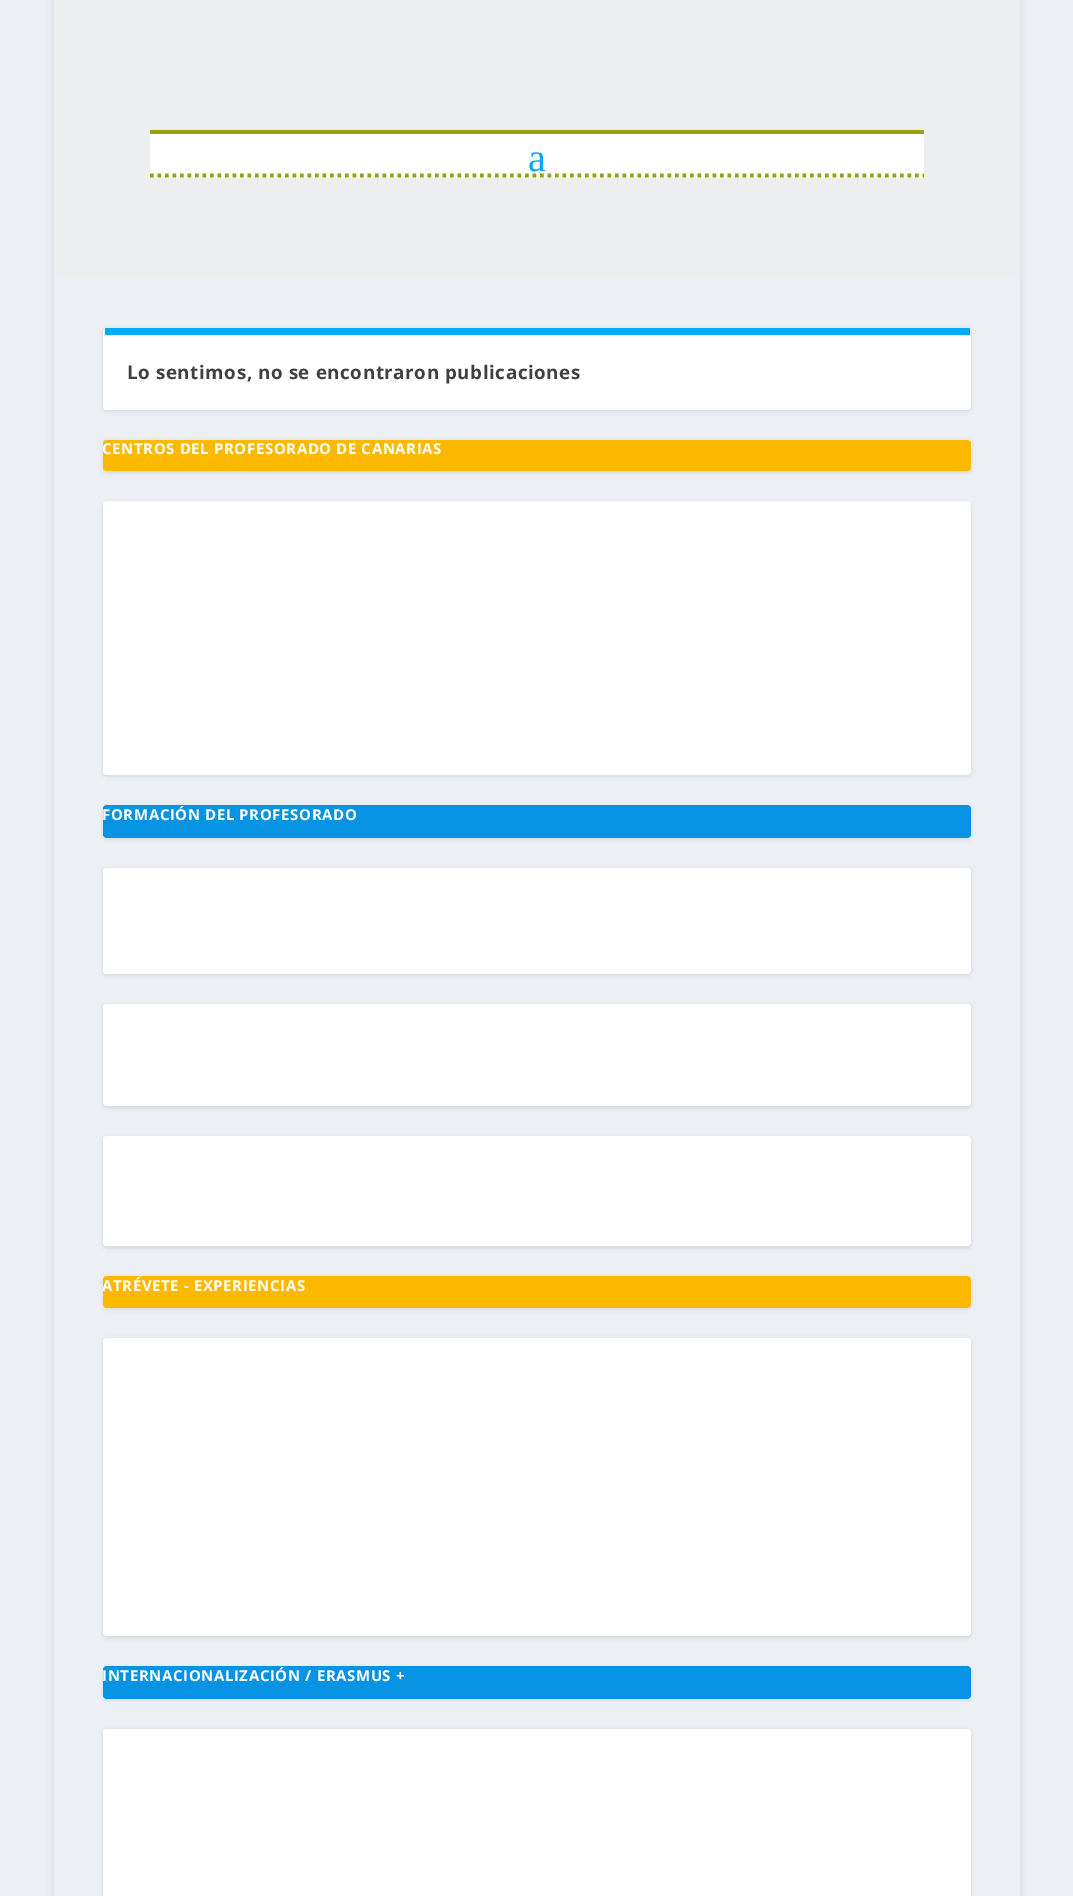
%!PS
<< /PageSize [1073 1896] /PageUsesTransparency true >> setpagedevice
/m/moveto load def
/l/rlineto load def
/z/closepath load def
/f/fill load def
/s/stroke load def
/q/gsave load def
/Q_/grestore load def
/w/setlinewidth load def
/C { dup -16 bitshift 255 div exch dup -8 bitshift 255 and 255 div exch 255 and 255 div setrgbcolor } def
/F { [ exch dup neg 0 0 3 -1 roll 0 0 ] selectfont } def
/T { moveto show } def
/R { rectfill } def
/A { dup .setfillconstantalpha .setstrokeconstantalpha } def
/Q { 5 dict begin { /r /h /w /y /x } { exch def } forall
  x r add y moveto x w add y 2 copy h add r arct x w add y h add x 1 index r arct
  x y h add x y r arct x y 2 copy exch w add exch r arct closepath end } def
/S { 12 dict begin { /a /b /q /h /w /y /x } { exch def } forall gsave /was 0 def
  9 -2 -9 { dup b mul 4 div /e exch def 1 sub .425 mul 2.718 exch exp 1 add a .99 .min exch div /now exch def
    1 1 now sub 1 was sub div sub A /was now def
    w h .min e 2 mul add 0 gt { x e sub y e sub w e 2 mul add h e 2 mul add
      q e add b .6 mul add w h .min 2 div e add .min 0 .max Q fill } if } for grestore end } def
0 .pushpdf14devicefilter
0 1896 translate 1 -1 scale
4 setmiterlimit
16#ECF0F5 C
0 0 1073 1896 R
q
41 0 m 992 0 l 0 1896 l -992 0 l z 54 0 m 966 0 l 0 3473 l -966 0 l z eoclip newpath
16#000000 C
54 1 966 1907 0 4 .1 S
Q_
16#EDEEF0 C
54 0 966 278 R
16#FFFFFF C
150 134 774 44 R
16#99A30D C
150 130 774 4 R
3.8 w
[3.75 3.75] 0 setdash
150 175.5 m 774 0 l s
/LiberationSerif-Regular 40 F
16#00A8FF C
(a) 528 171 T
16#000000 C
103 329 868 82 4 2 .1 S
16#FFFFFF C
103 328 868 82 4 Q f
16#00A8FF C
105 328 865 7 R
/OpenSans-Bold 18.75 F
16#404040 C
127 379 m .6 0 (Lo sentimos, no se encontraron publicaciones) ashow
16#000000 C
103 441 868 32 4 2 .1 S
16#FCB900 C
103 440 868 31 4 Q f
/OpenSans-Bold 15 F
16#FFFFFF C
102 454 m .6 0 (CENTROS DEL PROFESORADO DE CANARIAS) ashow
16#000000 C
103 503 868 273 4 2 .1 S
16#FFFFFF C
103 501 868 274 4 Q f
16#000000 C
103 806 868 33 4 2 .1 S
16#0693E3 C
103 805 868 33 4 Q f
16#FFFFFF C
102 820 m .6 0 (FORMACIÓN DEL PROFESORADO) ashow
16#000000 C
103 869 868 106 4 2 .1 S
16#FFFFFF C
103 868 868 106 4 Q f
16#000000 C
103 1005 868 103 4 2 .1 S
16#FFFFFF C
103 1004 868 102 4 Q f
16#000000 C
103 1138 868 110 4 2 .1 S
16#FFFFFF C
103 1136 868 110 4 Q f
16#000000 C
103 1278 868 31 4 2 .1 S
16#FCB900 C
103 1276 868 32 4 Q f
q
103 1276 868 32 4 Q clip newpath
16#FFFFFF C
102 1291 m .6 0 (ATRÉVETE - EXPERIENCIAS) ashow
Q_
16#000000 C
103 1339 868 299 4 2 .1 S
16#FFFFFF C
103 1338 868 298 4 Q f
16#000000 C
103 1668 868 32 4 2 .1 S
16#0693E3 C
103 1666 868 33 4 Q f
16#FFFFFF C
102 1681 m .6 0 (INTERNACIONALIZACIÓN / ERASMUS +) ashow
16#000000 C
103 1730 868 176 4 2 .1 S
16#FFFFFF C
103 1729 868 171 4 Q f
.poppdf14devicefilter showpage
